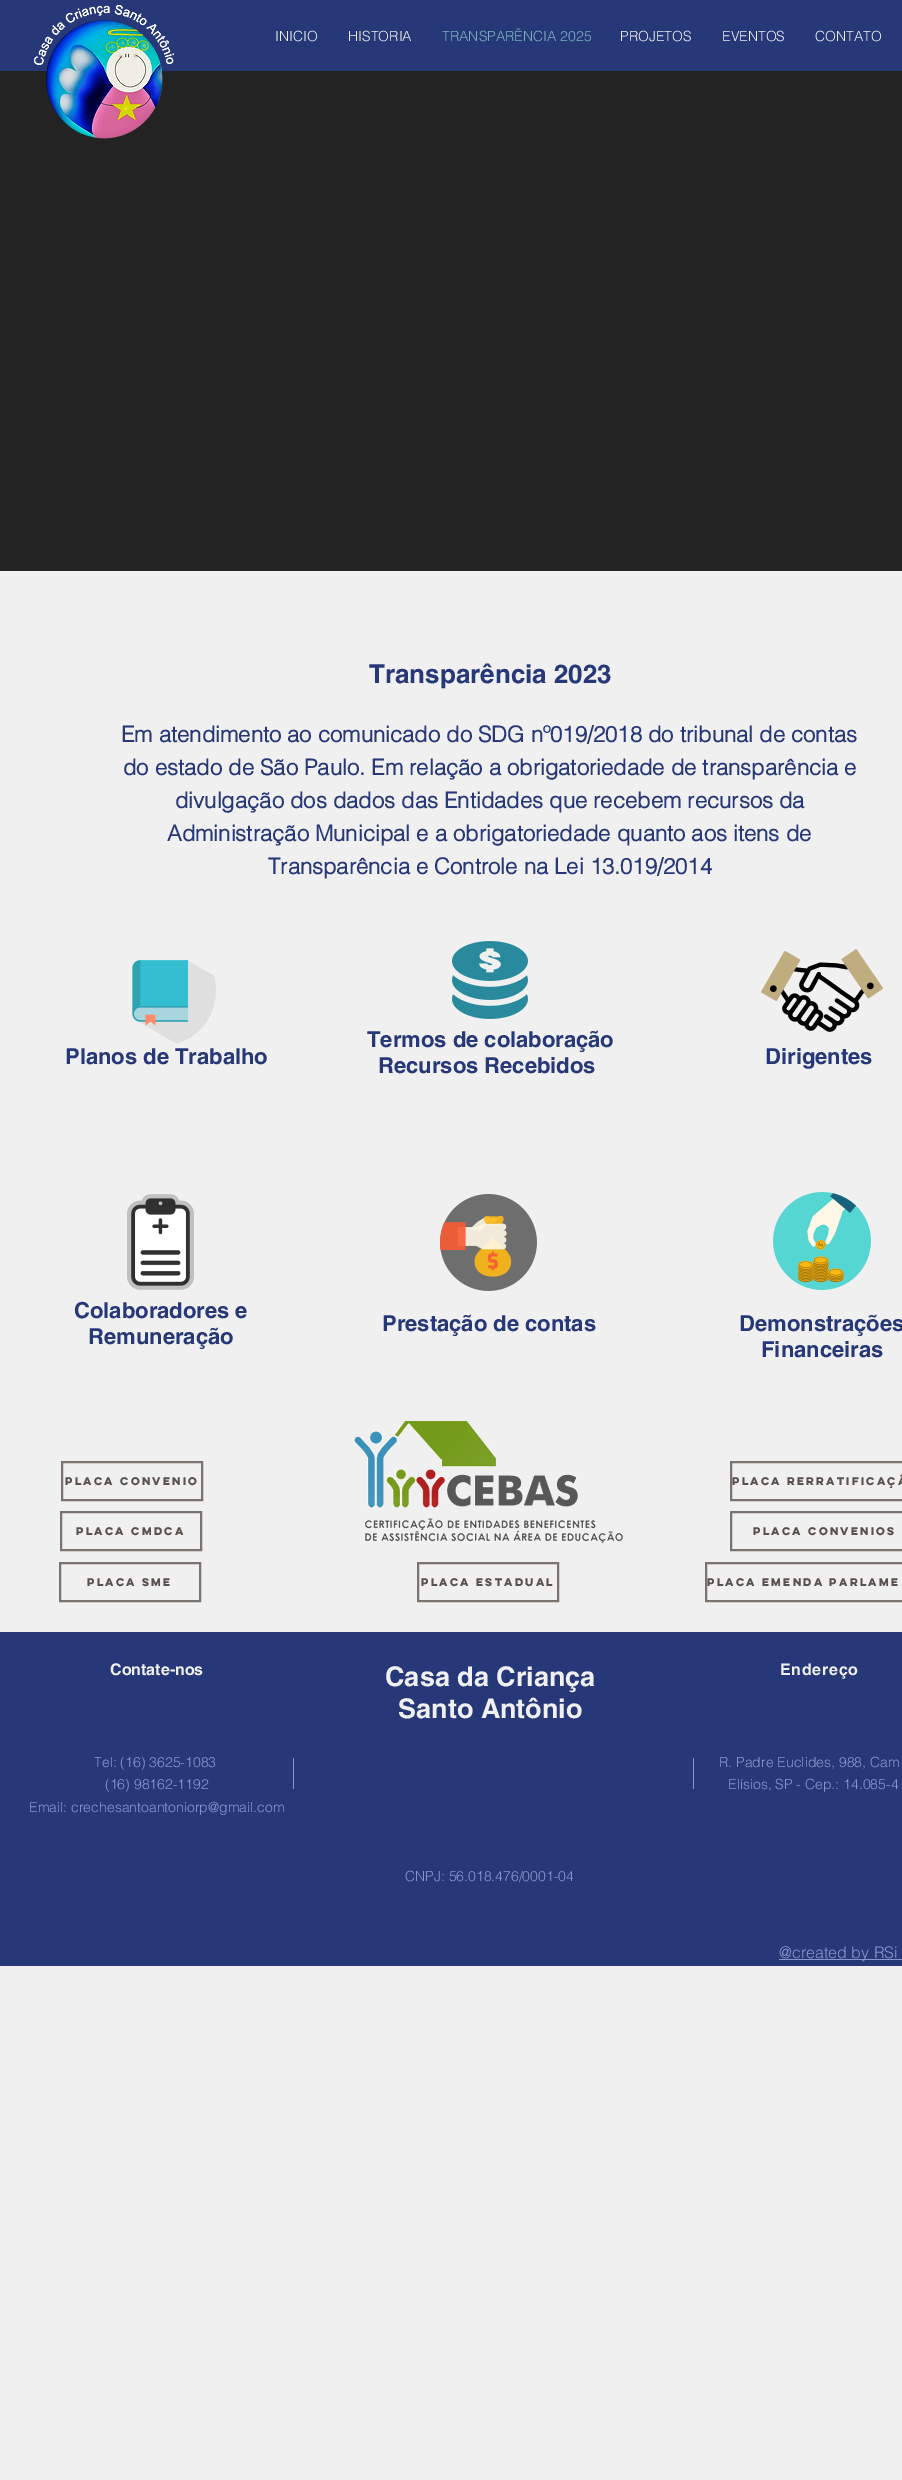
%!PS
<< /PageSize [902 2480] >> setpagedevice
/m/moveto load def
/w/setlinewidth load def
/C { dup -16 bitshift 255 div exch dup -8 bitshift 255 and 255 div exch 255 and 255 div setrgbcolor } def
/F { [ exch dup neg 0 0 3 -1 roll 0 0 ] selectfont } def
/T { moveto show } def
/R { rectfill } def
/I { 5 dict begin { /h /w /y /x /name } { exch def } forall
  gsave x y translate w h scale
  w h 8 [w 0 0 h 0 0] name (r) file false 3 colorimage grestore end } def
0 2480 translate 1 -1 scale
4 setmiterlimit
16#F0F0F0 C
0 0 902 2480 R
16#273878 C
0 0 902 71 R
/helvetica-Light 14 F
16#F0F0F0 C
(INICIO) 275 41 T
(HISTORIA) 348 41 T
16#78B2BE C
(TRANSPARÊNCIA 2025) 442 41 T
16#F0F0F0 C
(PROJETOS) 620 41 T
(EVENTOS) 722 41 T
(CONTATO) 815 41 T
16#242323 C
0 71 902 500 R
(2.rgb) 34 5 140 66 I
(1.rgb) 34 5 140 134 I
/helvetica-Bold 26 F
16#273878 C
(Transparência 2023) 369 683 T
/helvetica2-Bold 22 F
(Em atendimento ao comunicado do SDG nº019/2018 do tribunal de contas) 121 742 T
(do estado de São Paulo. Em relação a obrigatoriedade de transparência e) 123 775 T
(divulgação dos dados das Entidades que recebem recursos da) 175 808 T
(Administração Municipal e a obrigatoriedade quanto aos itens de) 167 841 T
(Transparência e Controle na Lei 13.019/2014) 268 874 T
(3.rgb) 132 960 84 84 I
(4.rgb) 452 941 76 78 I
(5.rgb) 761 949 122 83 I
/helvetica-Bold 22 F
(Planos de Trabalho) 65 1064 T
(Termos de colaboração) 367 1047 T
(Recursos Recebidos) 378 1073 T
(Dirigentes) 765 1064 T
(6.rgb) 127 1194 67 96 I
(7.rgb) 440 1194 97 97 I
(8.rgb) 773 1192 98 98 I
(Colaboradores e) 74 1318 T
(Remuneração) 88 1344 T
(Prestação de contas) 382 1331 T
(Demonstrações) 739 1331 T
(Financeiras) 761 1357 T
16#7B736F C
2 w
62 1462 140 38 rectstroke
/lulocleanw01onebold-Bold 10 F
16#59514D C
(Placa Convenio) 65 1485 T
(9.rgb) 354 1421 269 122 I
16#7B736F C
731 1462 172 38 rectstroke
16#59514D C
(Placa Rerratificaçã) 732 1485 T
16#7B736F C
61 1512 140 38 rectstroke
16#59514D C
(Placa CMDCA) 76 1535 T
16#7B736F C
731 1512 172 38 rectstroke
16#59514D C
(Placa Convenios) 753 1535 T
16#7B736F C
60 1563 140 38 rectstroke
16#59514D C
(Placa SME) 87 1586 T
16#7B736F C
418 1563 140 38 rectstroke
16#59514D C
(Placa estadual) 421 1586 T
16#7B736F C
706 1563 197 38 rectstroke
16#59514D C
(Placa Emenda Parlame) 707 1586 T
16#273878 C
0 1632 902 334 R
/helvetica-Bold 16 F
16#F0F0F0 C
(Contate-nos) 110 1675 T
/helvetica-Bold 27 F
(Casa da Criança) 385 1686 T
(Santo Antônio) 398 1718 T
/helvetica-Bold 16 F
780 1675 m .75 0 (Endereço) ashow
/helvetica-Light 14 F
16#8896CD C
(Tel: \(16\) 3625-1083) 94 1767 T
(\(16\) 98162-1192) 105 1789 T
(Email: crechesantoantoniorp@gmail.com) 29 1812 T
293 1758 1 31 R
693 1758 1 31 R
(R. Padre Euclides, 988, Cam) 719 1767 T
(Elísios, SP - Cep.: 14.085-4) 728 1789 T
(CNPJ: 56.018.476/0001-04) 405 1881 T
779 1959 123 1 R
/helvetica-Light 16 F
(@created by RSi) 779 1958 T
showpage
